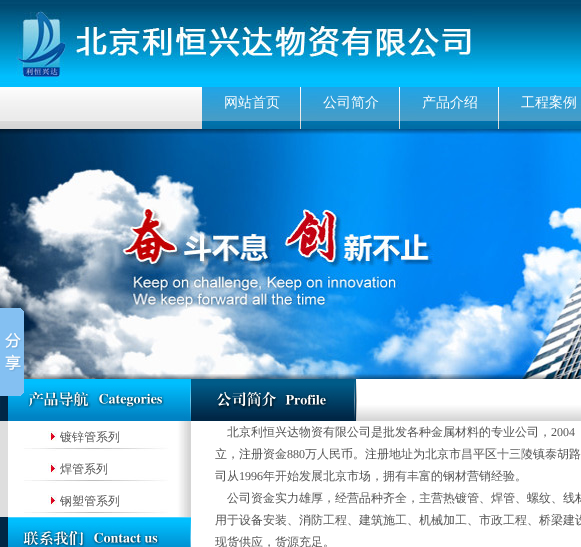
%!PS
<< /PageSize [581 547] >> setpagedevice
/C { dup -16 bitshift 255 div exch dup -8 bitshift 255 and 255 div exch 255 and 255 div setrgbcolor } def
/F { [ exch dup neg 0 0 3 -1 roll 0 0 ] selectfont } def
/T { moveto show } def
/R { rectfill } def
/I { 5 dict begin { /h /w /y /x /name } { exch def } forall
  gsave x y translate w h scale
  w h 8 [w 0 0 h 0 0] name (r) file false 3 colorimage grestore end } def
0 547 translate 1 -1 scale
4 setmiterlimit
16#FFFFFF C
0 0 581 547 R
(1.rgb) 0 0 581 129 I
(2.rgb) 16 10 456 72 I
(3.rgb) 202 87 99 42 I
/WenQuanYiZenHei-Medium 14 F
(网站首页) 224 107 T
(3.rgb) 301 87 99 42 I
(公司简介) 323 107 T
(3.rgb) 400 87 99 42 I
(产品介绍) 422 107 T
(4.rgb) 499 87 82 42 I
(工程案例) 521 107 T
(5.rgb) 0 129 581 250 I
(7.rgb) 0 379 191 42 I
(6.rgb) 0 308 24 88 I
(8.rgb) 0 421 191 32 I
(9.rgb) 48 431 9 10 I
/WenQuanYiZenHei-Medium 12 F
16#555555 C
(镀锌管系列) 60 441 T
(8.rgb) 0 453 191 32 I
(9.rgb) 48 463 9 10 I
(焊管系列) 60 473 T
(8.rgb) 0 485 191 32 I
(9.rgb) 48 495 9 10 I
(钢塑管系列) 60 505 T
(10.rgb) 0 517 191 30 I
(11.rgb) 191 379 390 42 I
(北京利恒兴达物资有限公司是批发各种金属材料的专业公司，) 227 436 T
/LiberationSerif-Regular 12 F
(2004) 551 436 T
/WenQuanYiZenHei-Medium 12 F
(立，注册资金) 215 458 T
/LiberationSerif-Regular 12 F
(880) 287 458 T
/WenQuanYiZenHei-Medium 12 F
(万人民币。注册地址为北京市昌平区十三陵镇泰胡路) 305 458 T
(司从) 215 480 T
/LiberationSerif-Regular 12 F
(1996) 239 480 T
/WenQuanYiZenHei-Medium 12 F
(年开始发展北京市场，拥有丰富的钢材营销经验。) 263 480 T
(公司资金实力雄厚，经营品种齐全，主营热镀管、焊管、螺纹、线材) 227 502 T
(用于设备安装、消防工程、建筑施工、机械加工、市政工程、桥梁建设) 215 524 T
(现货供应，货源充足。) 215 546 T
showpage
